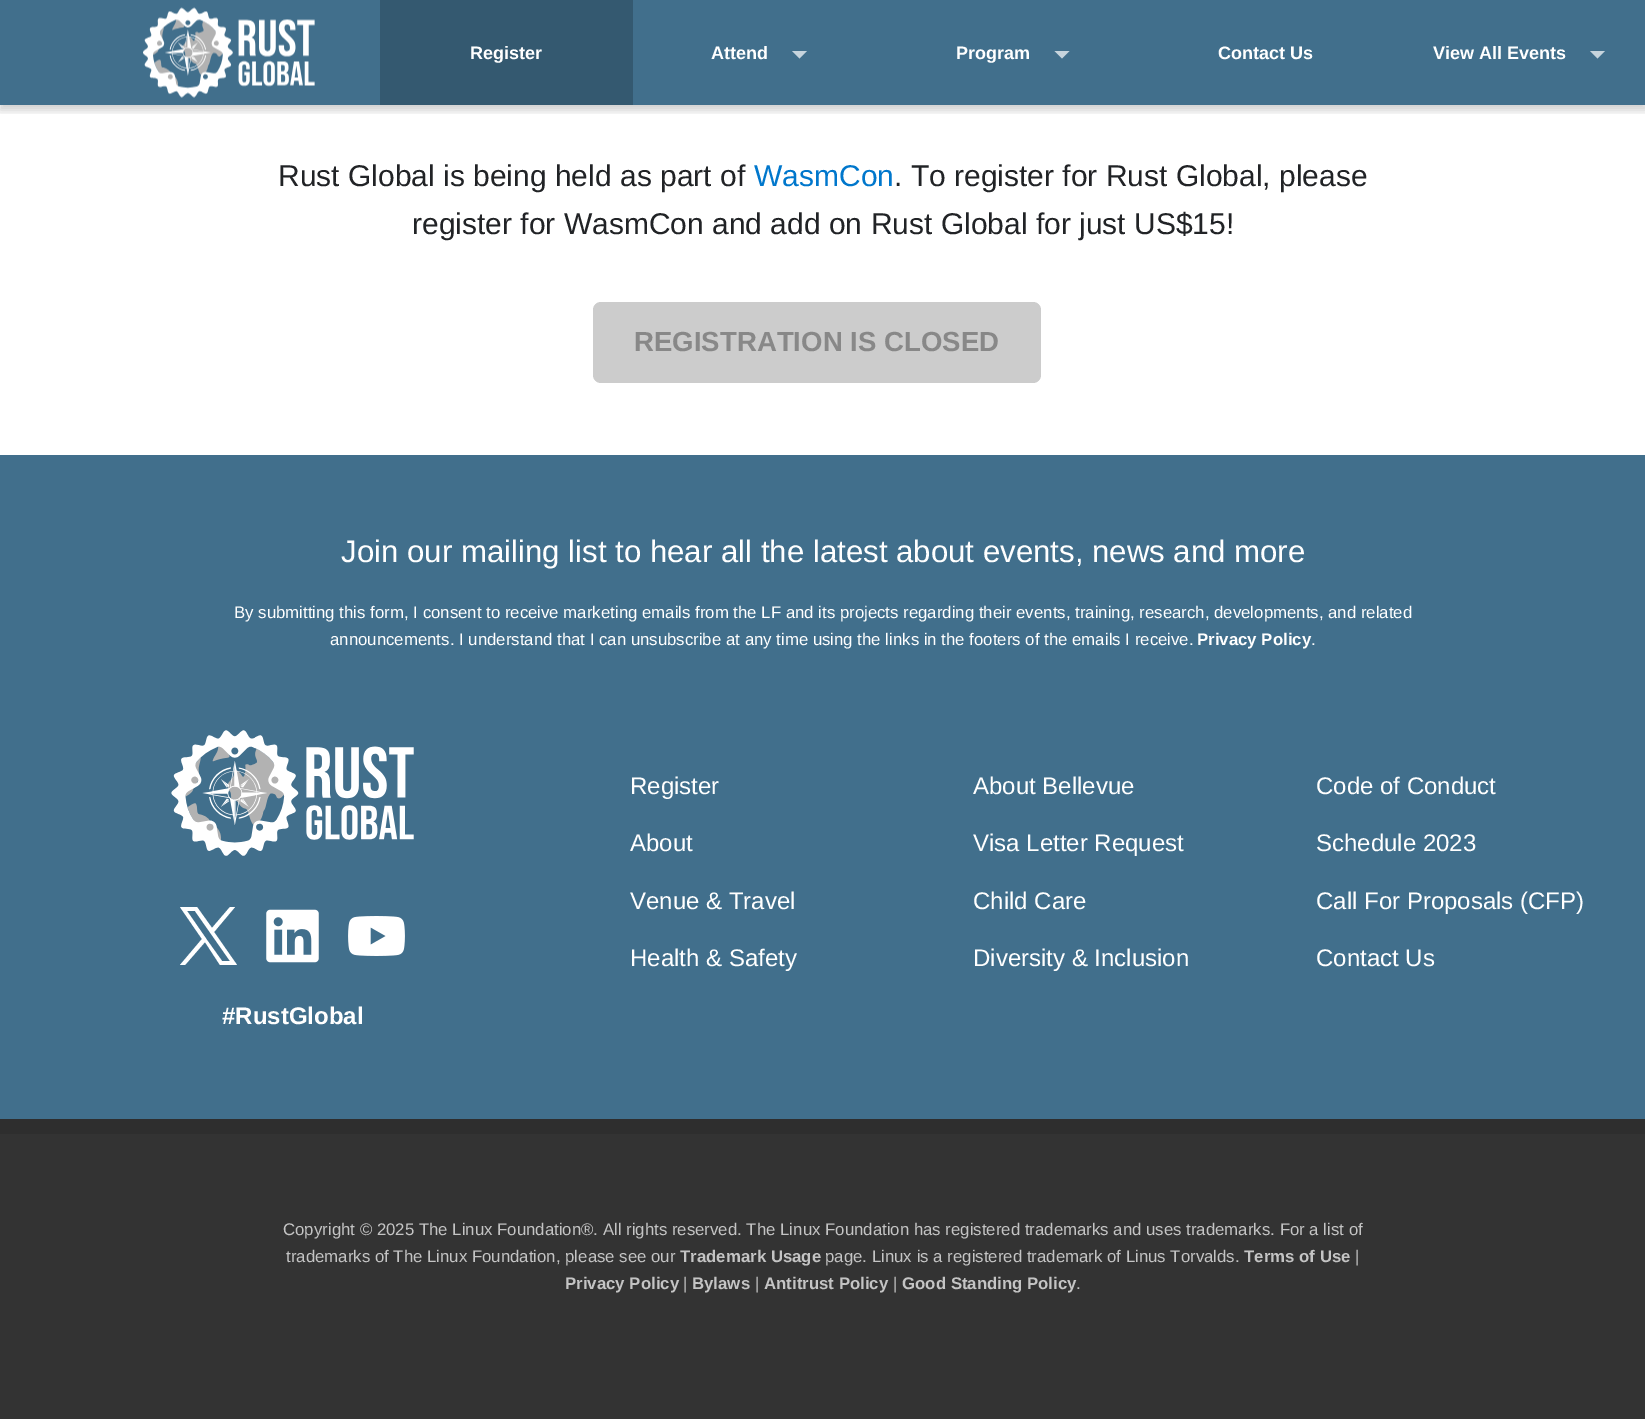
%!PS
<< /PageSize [1645 1419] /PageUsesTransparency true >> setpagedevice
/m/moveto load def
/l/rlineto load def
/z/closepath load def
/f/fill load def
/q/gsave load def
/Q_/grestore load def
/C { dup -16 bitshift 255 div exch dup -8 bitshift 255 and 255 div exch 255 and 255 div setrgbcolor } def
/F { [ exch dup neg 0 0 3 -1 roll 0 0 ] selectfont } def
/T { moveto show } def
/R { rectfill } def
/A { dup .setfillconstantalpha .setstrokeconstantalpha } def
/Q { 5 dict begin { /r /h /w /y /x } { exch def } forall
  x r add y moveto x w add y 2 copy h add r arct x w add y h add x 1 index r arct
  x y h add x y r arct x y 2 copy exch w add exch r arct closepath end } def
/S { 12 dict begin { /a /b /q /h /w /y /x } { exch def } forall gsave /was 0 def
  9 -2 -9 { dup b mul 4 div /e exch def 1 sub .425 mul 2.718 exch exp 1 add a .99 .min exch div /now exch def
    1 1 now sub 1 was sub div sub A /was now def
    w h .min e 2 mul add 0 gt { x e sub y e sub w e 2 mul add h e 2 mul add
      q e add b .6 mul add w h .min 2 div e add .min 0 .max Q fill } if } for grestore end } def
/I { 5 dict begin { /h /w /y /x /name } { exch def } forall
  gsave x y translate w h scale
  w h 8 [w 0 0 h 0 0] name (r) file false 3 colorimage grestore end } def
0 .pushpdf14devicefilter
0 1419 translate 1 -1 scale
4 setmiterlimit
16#FFFFFF C
0 0 1645 1419 R
16#416F8C C
0 0 1645 105 R
q
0 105 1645 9 rectclip
16#000000 C
0 5 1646 105 0 4.5 .1 S
0 5 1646 105 0 4.5 .1 S
Q_
(1.rgb) 143 7 172 91 I
16#345970 C
380 0 253 105 R
/LiberationSans-Bold 18 F
16#FFFFFF C
(Register) 470 59 T
(Attend) 711 59 T
16#C6D4DD C
792 51 m 15 0 l -7.5 7.5 l z f
16#FFFFFF C
(Program) 956 59 T
16#C6D4DD C
1054.5 51 m 15 0 l -7.5 7.5 l z f
16#FFFFFF C
(Contact Us) 1218 59 T
(View All Events) 1433 59 T
16#C6D4DD C
1590 51 m 15 0 l -7.5 7.5 l z f
/LiberationSans-Regular 30 F
16#212326 C
(Rust Global is being held as part of) 278 186 T
16#0077CC C
(WasmCon) 754 186 T
16#212326 C
(. To register for Rust Global, please) 894 186 T
(register for WasmCon and add on Rust Global for just US$15!) 412 234 T
16#CCCCCC C
593 302 448 81 8 Q f
/LiberationSans-Bold 27.6 F
16#888888 C
(REGISTRATION IS CLOSED) 634 351 T
16#416F8C C
0 455 1645 664 R
/LiberationSans-Regular 31.2 F
16#FFFFFF C
(Join our mailing list to hear all the latest about events, news and more) 341 562 T
/LiberationSans-Regular 16.8 F
(By submitting this form, I consent to receive marketing emails from the LF and its projects regarding their events, training, research, developments, and related) 234 618 T
(announcements. I understand that I can unsubscribe at any time using the links in the footers of the emails I receive.) 330 645 T
/LiberationSans-Bold 16.8 F
(Privacy Policy) 1197 645 T
/LiberationSans-Regular 16.8 F
(.) 1311 645 T
/LiberationSans-Regular 24 F
(Register) 630 794 T
(About Bellevue) 973 794 T
(Code of Conduct) 1316 794 T
(About) 630 851 T
(Visa Letter Request) 973 851 T
(Schedule 2023) 1316 851 T
(Venue & Travel) 630 909 T
(Child Care) 973 909 T
(Call For Proposals \(CFP\)) 1316 909 T
(Health & Safety) 630 966 T
(Diversity & Inclusion) 973 966 T
(Contact Us) 1316 966 T
(2.rgb) 171 730 243 126 I
214 932 m 21 -25 l -5 0 l -18 21 l -15 -21 l -17 0 l 22 32 l -22 26 l 5 0 l 20 -23 l 15 23 l 17 0 l z 207 940 m -20 -29 l 8 0 l 35 50 l -8 0 l z f
(3.rgb) 266 909 53 54 I
(4.rgb) 348 916 57 40 I
/LiberationSans-Bold 24 F
(#RustGlobal) 222 1024 T
16#333333 C
0 1134 1645 285 R
16#2E2E2E C
0 1119 1645 15 R
/LiberationSans-Regular 16.8 F
16#C4C4C4 C
(Copyright © 2025 The Linux Foundation®. All rights reserved. The Linux Foundation has registered trademarks and uses trademarks. For a list of) 283 1235 T
(trademarks of The Linux Foundation, please see our) 286 1262 T
/LiberationSans-Bold 16.8 F
(Trademark Usage) 680 1262 T
/LiberationSans-Regular 16.8 F
(page. Linux is a registered trademark of Linus Torvalds.) 825 1262 T
/LiberationSans-Bold 16.8 F
(Terms of Use) 1244 1262 T
/LiberationSans-Regular 16.8 F
(|) 1355 1262 T
/LiberationSans-Bold 16.8 F
(Privacy Policy) 565 1289 T
/LiberationSans-Regular 16.8 F
(|) 683 1289 T
/LiberationSans-Bold 16.8 F
(Bylaws) 692 1289 T
/LiberationSans-Regular 16.8 F
(|) 755 1289 T
/LiberationSans-Bold 16.8 F
(Antitrust Policy) 764 1289 T
/LiberationSans-Regular 16.8 F
(|) 893 1289 T
/LiberationSans-Bold 16.8 F
(Good Standing Policy) 902 1289 T
/LiberationSans-Regular 16.8 F
(.) 1076 1289 T
.poppdf14devicefilter showpage
